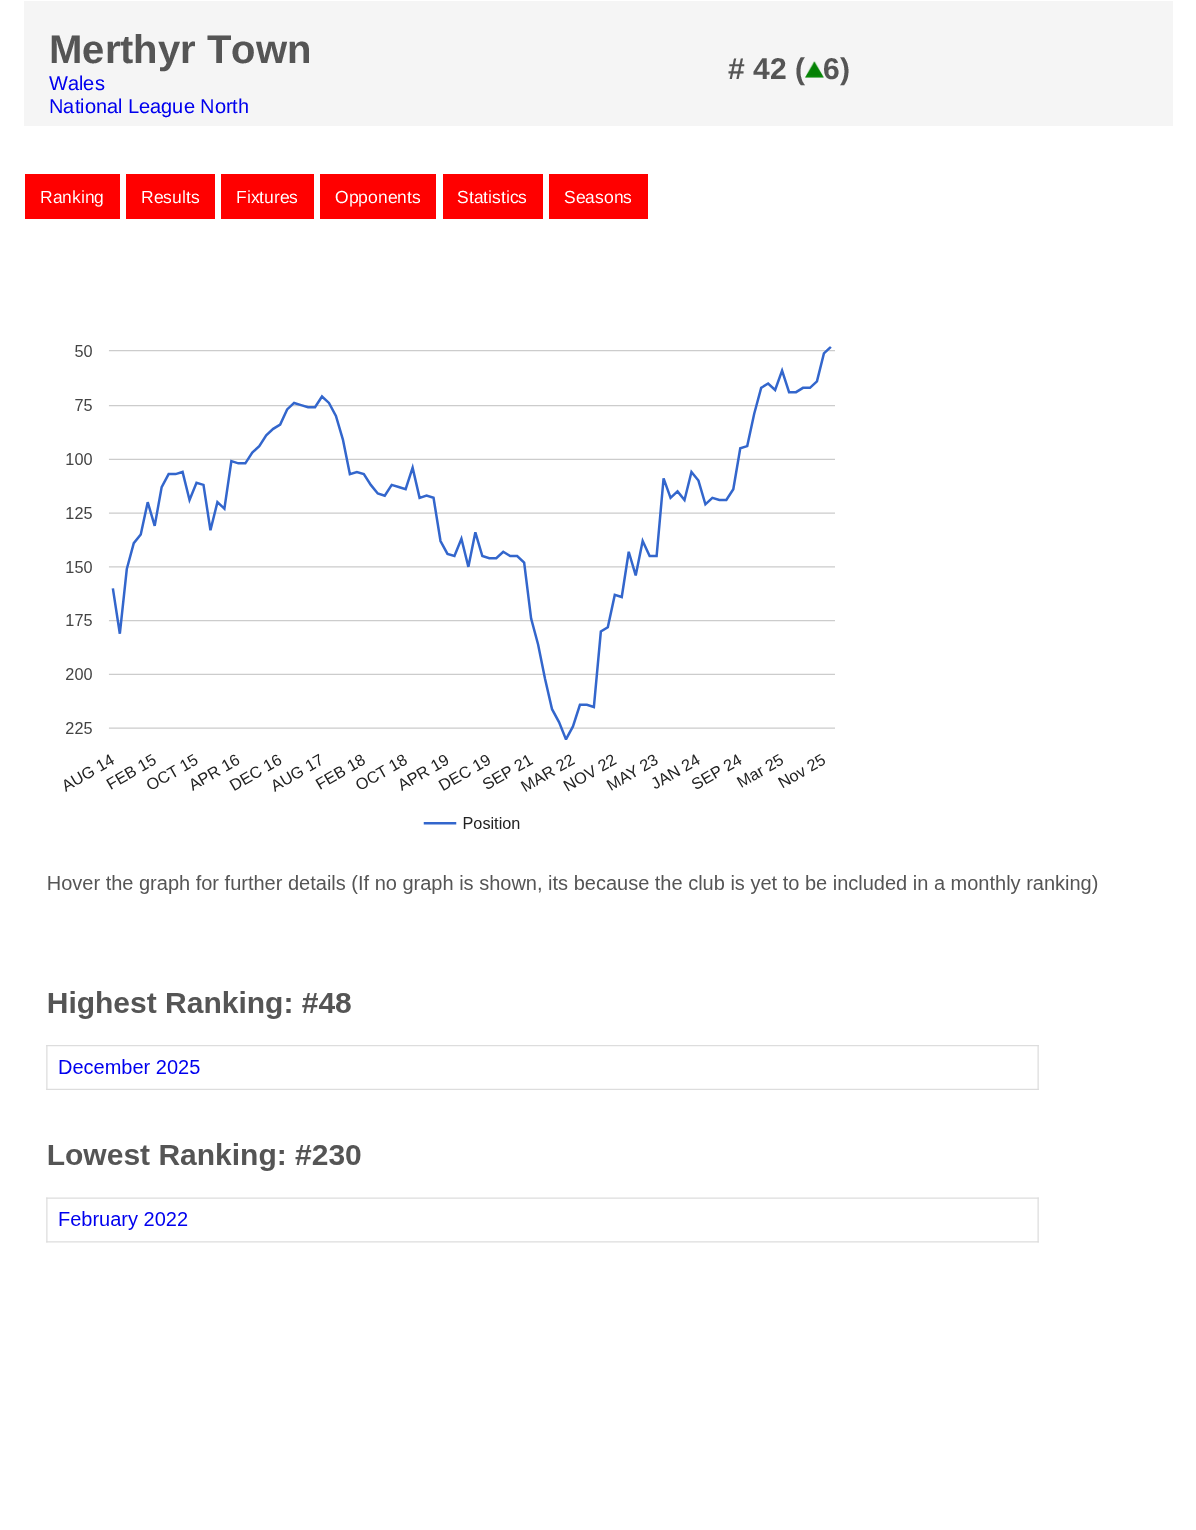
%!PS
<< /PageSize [1196 1530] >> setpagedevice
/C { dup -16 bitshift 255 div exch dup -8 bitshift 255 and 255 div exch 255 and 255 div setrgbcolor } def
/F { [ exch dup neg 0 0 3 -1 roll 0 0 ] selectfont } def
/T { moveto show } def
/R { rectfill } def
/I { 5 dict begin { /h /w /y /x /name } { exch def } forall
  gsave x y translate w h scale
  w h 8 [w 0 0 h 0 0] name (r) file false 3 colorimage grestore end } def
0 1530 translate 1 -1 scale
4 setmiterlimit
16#FFFFFF C
0 0 1196 1530 R
16#F5F5F5 C
24 1 1149 125 R
/LiberationSans-Bold 40 F
16#555555 C
(Merthyr Town) 49 63 T
/LiberationSans-Regular 20 F
16#0000EE C
(Wales) 49 90 T
(National League North) 49 113 T
/LiberationSans-Bold 30 F
16#555555 C
(# 42 \() 728 79 T
(1.rgb) 805 61 19 17 I
(6\)) 823 79 T
16#FF0000 C
25 174 95 45 R
/LiberationSans-Regular 17.5 F
16#FFFFFF C
(Ranking) 40 203 T
16#FF0000 C
126 174 89 45 R
16#FFFFFF C
(Results) 141 203 T
16#FF0000 C
221 174 93 45 R
16#FFFFFF C
(Fixtures) 236 203 T
16#FF0000 C
320 174 116 45 R
16#FFFFFF C
(Opponents) 335 203 T
16#FF0000 C
443 174 100 45 R
16#FFFFFF C
(Statistics) 457 203 T
16#FF0000 C
549 174 99 45 R
16#FFFFFF C
(Seasons) 564 203 T
(2.rgb) 46 345 1052 898 I
showpage
